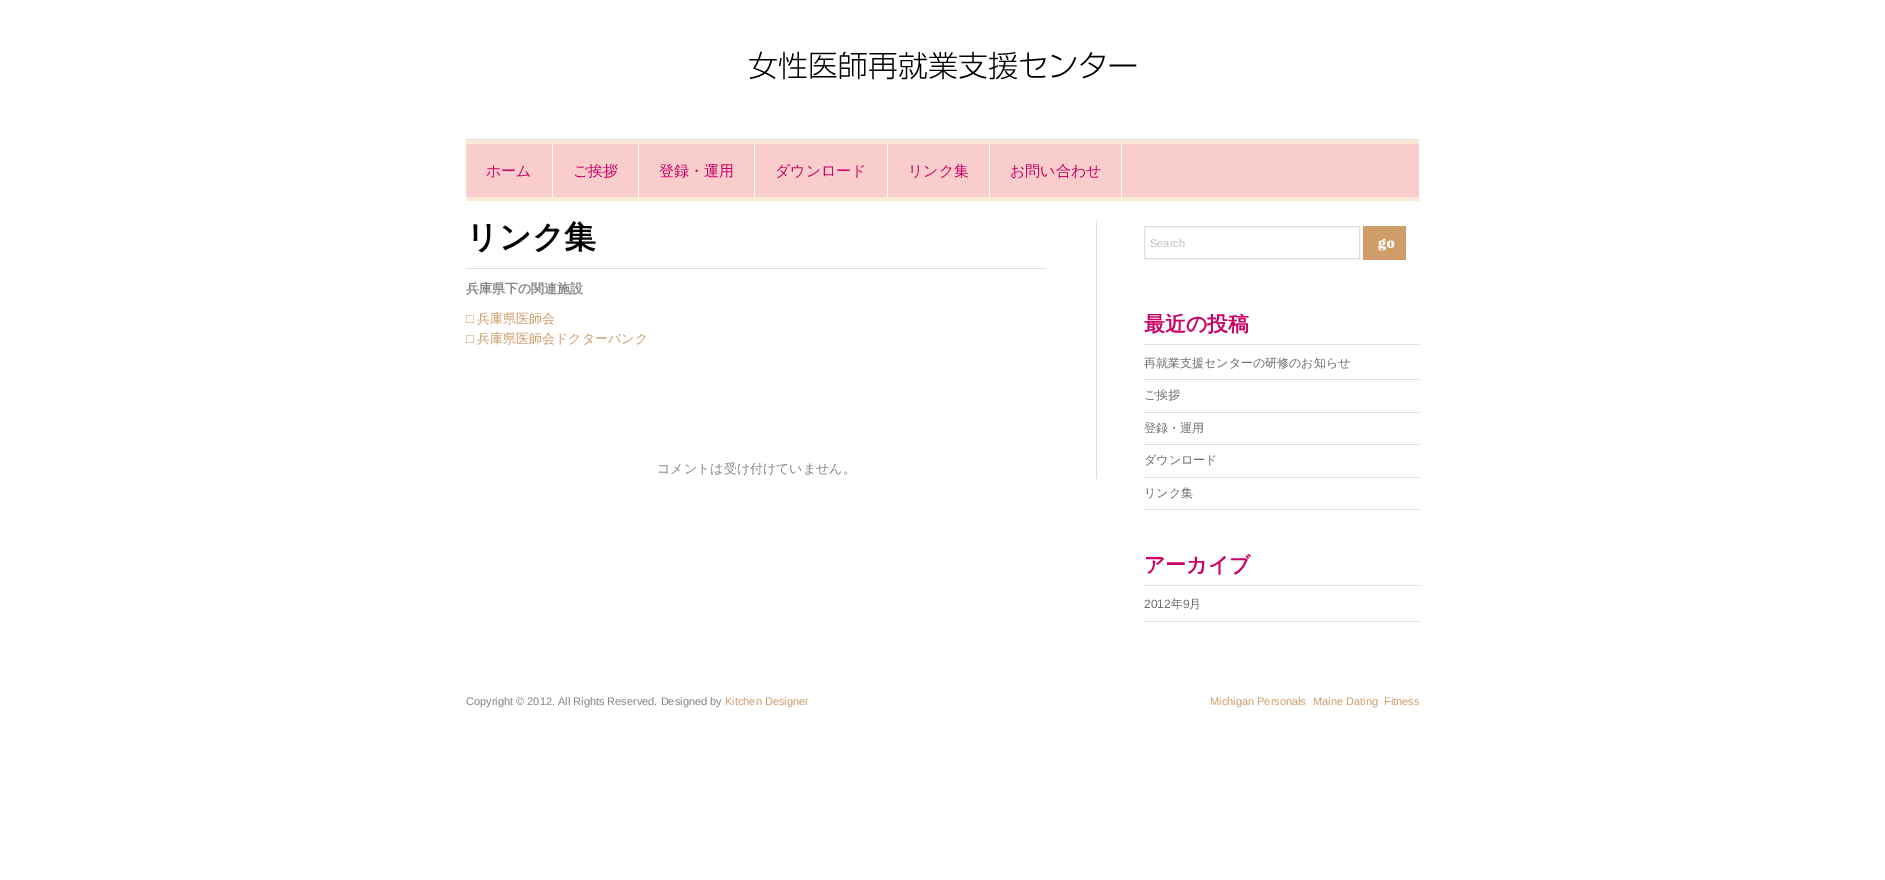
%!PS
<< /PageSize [1885 880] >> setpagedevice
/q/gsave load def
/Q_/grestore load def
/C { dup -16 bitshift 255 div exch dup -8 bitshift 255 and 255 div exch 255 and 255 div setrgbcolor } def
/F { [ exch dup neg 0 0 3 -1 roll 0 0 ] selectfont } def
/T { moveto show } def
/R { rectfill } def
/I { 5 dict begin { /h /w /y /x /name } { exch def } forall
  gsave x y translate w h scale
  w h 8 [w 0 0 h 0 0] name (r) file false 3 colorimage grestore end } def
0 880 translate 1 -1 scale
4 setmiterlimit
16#FFFFFF C
0 0 1885 880 R
16#E0DFDF C
466 139 953 1 R
(1.rgb) 749 51 388 29 I
16#FACDCD C
466 144 953 53 R
16#FAE9D7 C
466 140 953 4 R
466 197 953 4 R
16#FFFFFF C
552 144 1 53 R
/WenQuanYiZenHei-Medium 15 F
16#CC0066 C
(ホーム) 486 176 T
16#FFFFFF C
638 144 1 53 R
16#CC0066 C
(ご挨拶) 573 176 T
16#FFFFFF C
754 144 1 53 R
16#CC0066 C
(登録・運用) 659 176 T
16#FFFFFF C
887 144 1 53 R
16#CC0066 C
(ダウンロード) 775 176 T
16#FFFFFF C
989 144 1 53 R
16#CC0066 C
(リンク集) 908 176 T
16#FFFFFF C
1121 144 1 53 R
16#CC0066 C
(お問い合わせ) 1010 176 T
16#E0DFDF C
1096 221 1 258 R
466 268 580 1 R
/WenQuanYiZenHei-Bold 32 F
16#040200 C
(リンク集) 466 248 T
/WenQuanYiZenHei-Bold 13 F
16#868585 C
(兵庫県下の関連施設) 466 293 T
/LiberationSans-Regular 13 F
16#CE9D6A C
(□) 466 323 T
/WenQuanYiZenHei-Medium 13 F
(兵庫県医師会) 477 323 T
/LiberationSans-Regular 13 F
(□) 466 343 T
/WenQuanYiZenHei-Medium 13 F
(兵庫県医師会ドクターバンク) 477 343 T
16#868585 C
(コメントは受け付けていません。) 657 473 T
16#E0DFDF C
1144.5 226.5 215 32 rectstroke
/LiberationSans-Regular 11 F
16#C2C1C1 C
(Search) 1150 247 T
(2.rgb) 1363 226 43 34 I
16#E0DFDF C
1144 344 275 1 R
q
1144 314 275 196 rectclip
/WenQuanYiZenHei-Bold 21 F
16#CC0066 C
(最近の投稿) 1144 331 T
Q_
1144 379 275 1 R
/WenQuanYiZenHei-Medium 12 F
16#6F6E6E C
(再就業支援センターの研修のお知らせ) 1144 367 T
16#E0DFDF C
1144 412 275 1 R
16#6F6E6E C
(ご挨拶) 1144 399 T
16#E0DFDF C
1144 444 275 1 R
16#6F6E6E C
(登録・運用) 1144 432 T
16#E0DFDF C
1144 477 275 1 R
16#6F6E6E C
(ダウンロード) 1144 464 T
16#E0DFDF C
1144 509 275 1 R
16#6F6E6E C
(リンク集) 1144 497 T
16#E0DFDF C
1144 585 275 1 R
/WenQuanYiZenHei-Bold 21 F
16#CC0066 C
(アーカイブ) 1144 572 T
16#E0DFDF C
1144 621 275 1 R
/LiberationSans-Regular 12 F
16#6F6E6E C
(2012) 1144 608 T
/WenQuanYiZenHei-Medium 12 F
(年) 1171 608 T
/LiberationSans-Regular 12 F
(9) 1183 608 T
/WenQuanYiZenHei-Medium 12 F
(月) 1189 608 T
/LiberationSans-Regular 11 F
16#868585 C
(Copyright © 2012. All Rights Reserved. Designed by) 466 705 T
16#CE9D6A C
(Kitchen Designer) 725 705 T
(Michigan Personals) 1210 705 T
(Maine Dating) 1313 705 T
(Fitness) 1384 705 T
showpage
